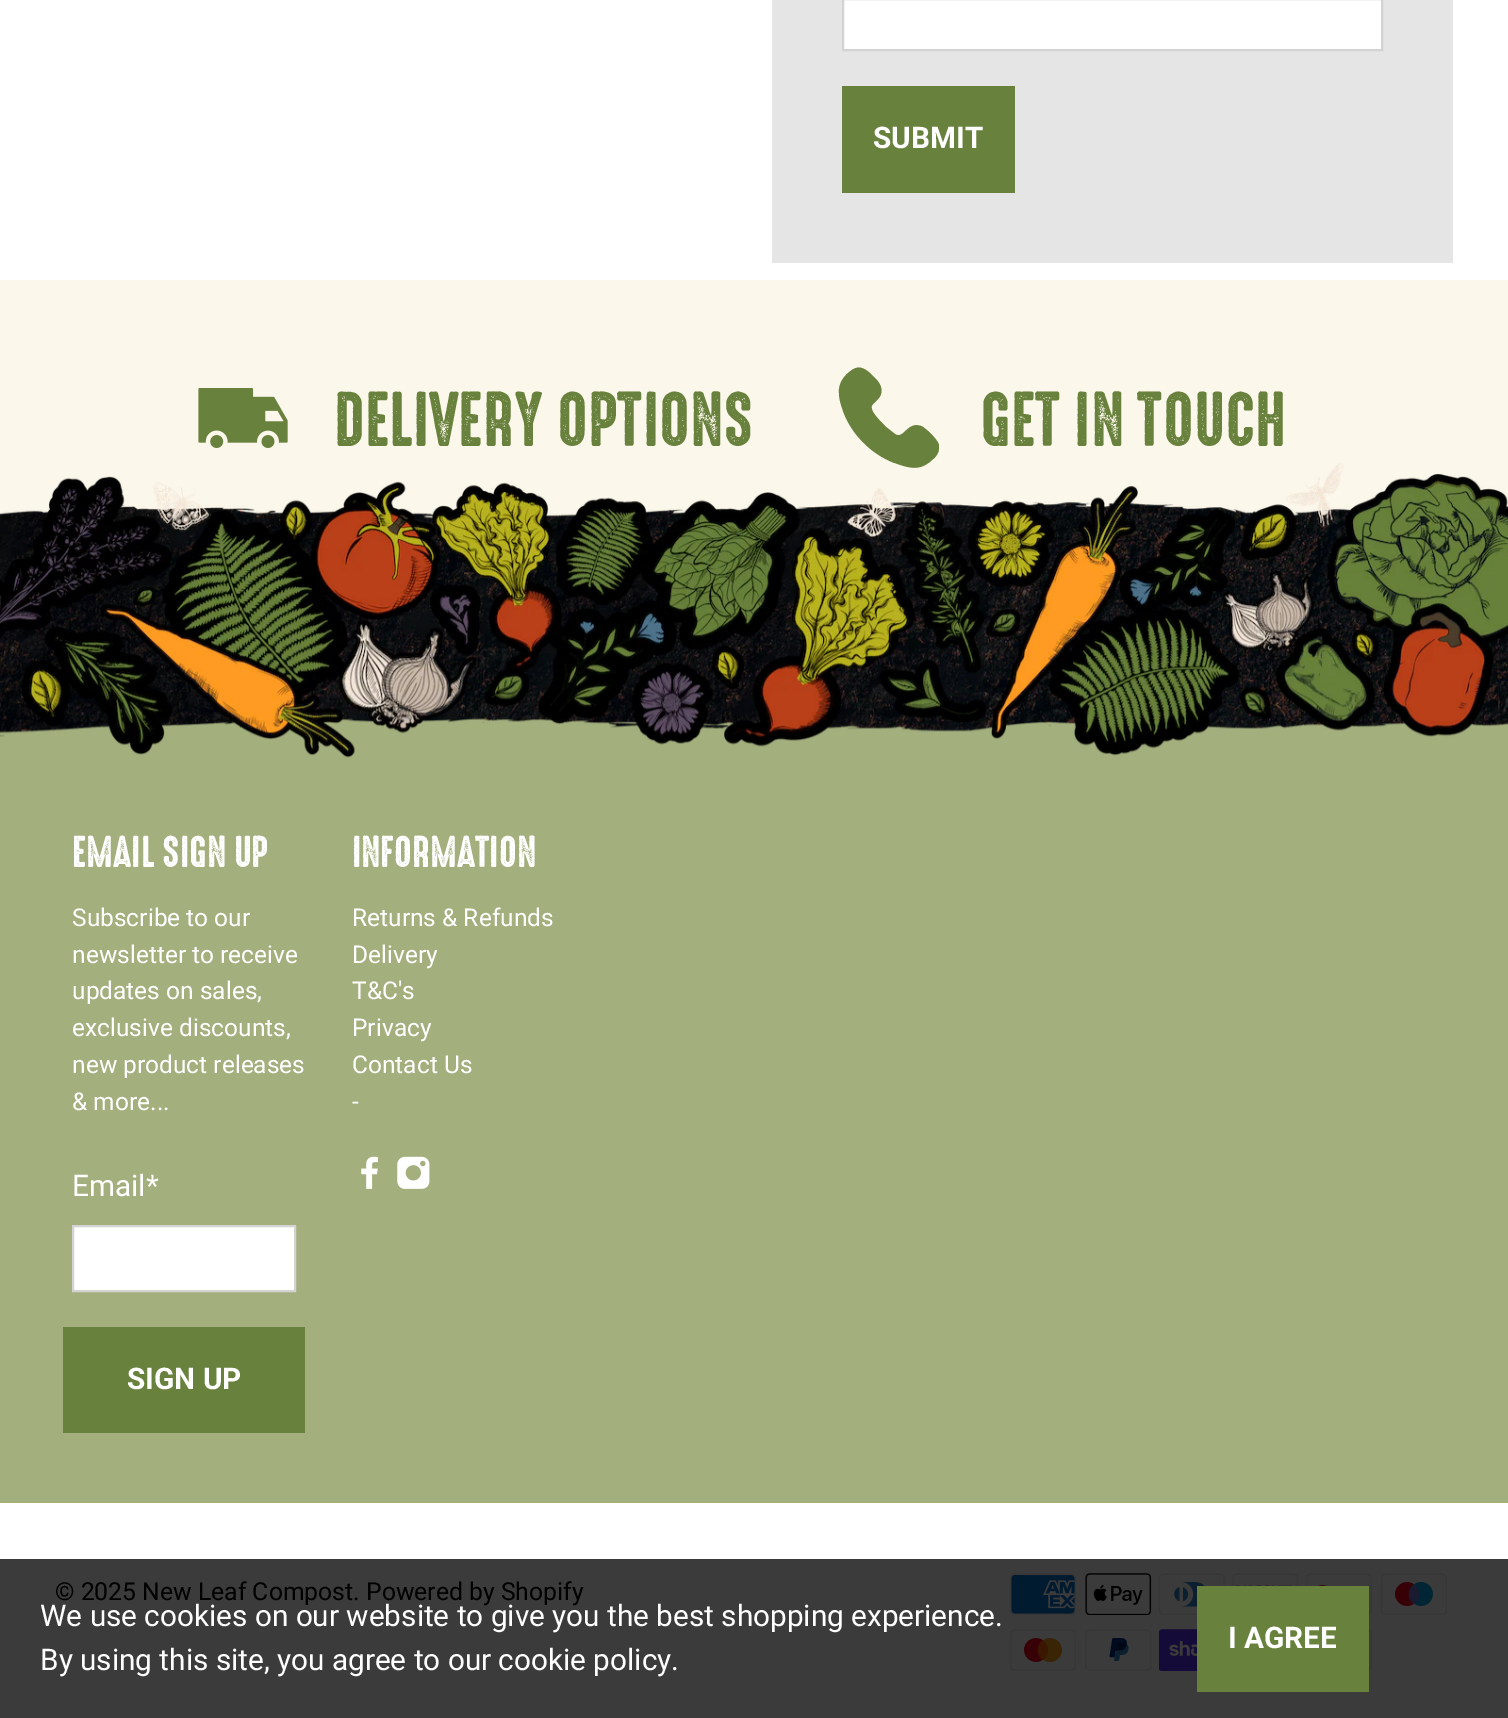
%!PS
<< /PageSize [1508 1718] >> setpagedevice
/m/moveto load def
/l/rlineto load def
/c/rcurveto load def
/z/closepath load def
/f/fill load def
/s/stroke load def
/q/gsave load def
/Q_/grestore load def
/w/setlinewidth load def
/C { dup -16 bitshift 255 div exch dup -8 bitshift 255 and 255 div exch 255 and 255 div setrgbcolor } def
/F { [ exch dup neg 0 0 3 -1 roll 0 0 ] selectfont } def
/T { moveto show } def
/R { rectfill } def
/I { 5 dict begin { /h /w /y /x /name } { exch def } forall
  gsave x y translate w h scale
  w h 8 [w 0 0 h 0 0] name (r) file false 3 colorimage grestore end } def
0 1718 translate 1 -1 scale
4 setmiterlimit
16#FFFFFF C
0 0 1508 1718 R
16#3B3B3B C
0 1559 1508 159 R
16#E5E5E5 C
772 0 681 263 R
16#FFFFFF C
843 -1 m 539 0 l 0 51 l -539 0 l z q f Q_
16#D3D3D3 C
2 w
s
16#68813C C
842 86 173 107 R
/Roboto-Bold 29.75 F
16#FFFFFF C
(SUBMIT) 873 148 T
16#FBF7EA C
0 280 1508 240 R
(1.rgb) 198 388 90 60 I
/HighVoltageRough-Regular 70 F
16#68813C C
(DELIVERY OPTIONS) 334 446 T
939 448 m 0 5 -3 9 -7 12 c -10 10 -20 9 -32 5 c -26 -8 -48 -29 -57 -54 c -2 -6 -4 -12 -4 -18 c -1 -9 5 -18 13 -23 c 8 -6 15 0 21 6 c 5 5 10 10 8 18 c -1 4 -5 7 -8 10 c -1 1 -2 3 -1 5 c 0 4 10 14 14 18 c 9 7 l 9 6 12 -13 26 -8 c 5 2 17 14 18 19 c z f
(GET IN TOUCH) 980 446 T
16#A3AF7D C
0 716 1508 787 R
(2.rgb) 0 463 1508 295 I
/HighVoltageRough-Regular 40.25 F
16#FFFFFF C
(EMAIL SIGN UP) 72 867 T
/Roboto-Regular 24.5 F
(Subscribe to our) 72 926 T
(newsletter to receive) 72 963 T
(updates on sales,) 72 999 T
(exclusive discounts,) 72 1036 T
(new product releases) 72 1073 T
(& more...) 72 1110 T
/Roboto-Regular 29.75 F
(Email*) 72 1196 T
73 1226 m 222 0 l 0 65 l -222 0 l z q f Q_
16#D3D3D3 C
s
16#68813C C
63 1327 242 106 R
/Roboto-Bold 29.75 F
16#FFFFFF C
(SIGN UP) 127 1389 T
/HighVoltageRough-Regular 40.25 F
(INFORMATION) 352 867 T
/Roboto-Regular 24.5 F
(Returns & Refunds) 352 926 T
(Delivery) 352 963 T
(T&C's) 352 999 T
(Privacy) 352 1036 T
(Contact Us) 352 1073 T
(-) 352 1110 T
(3.rgb) 361 1156 17 33 I
(4.rgb) 397 1156 33 33 I
/Roboto-Regular 24.75 F
16#000000 C
(© 2025 New Leaf Compost. Powered by Shopify) 55 1600 T
(5.rgb) 1010 1573 66 42 I
(6.rgb) 1085 1573 67 42 I
(7.rgb) 1159 1573 66 42 I
(8.rgb) 1232 1573 67 13 I
(9.rgb) 1306 1573 66 42 I
(10.rgb) 1381 1573 66 42 I
(11.rgb) 1010 1629 66 42 I
(12.rgb) 1085 1629 67 42 I
(13.rgb) 1159 1629 38 42 I
(14.rgb) 1369 1630 3 41 I
/Roboto-Regular 29.75 F
16#FFFFFF C
(We use cookies on our website to give you the best shopping experience.) 40 1626 T
(By using this site, you agree to our cookie policy.) 40 1670 T
16#68813C C
1197 1586 172 106 R
/Roboto-Bold 29.75 F
16#FFFFFF C
(I AGREE) 1228 1648 T
showpage
